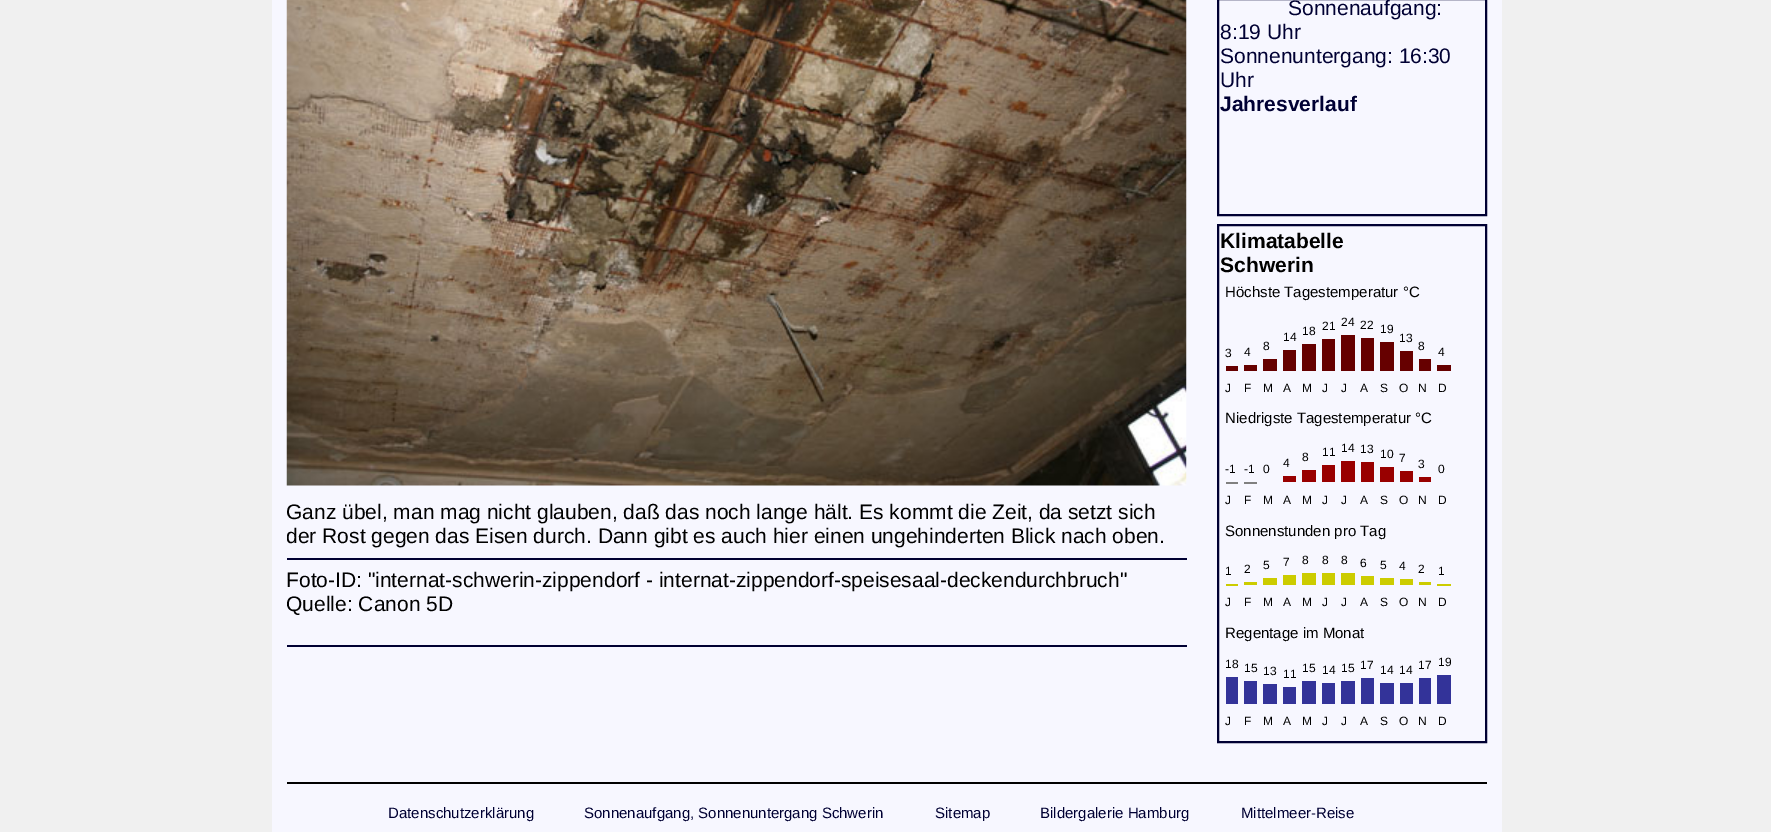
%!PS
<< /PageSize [1771 832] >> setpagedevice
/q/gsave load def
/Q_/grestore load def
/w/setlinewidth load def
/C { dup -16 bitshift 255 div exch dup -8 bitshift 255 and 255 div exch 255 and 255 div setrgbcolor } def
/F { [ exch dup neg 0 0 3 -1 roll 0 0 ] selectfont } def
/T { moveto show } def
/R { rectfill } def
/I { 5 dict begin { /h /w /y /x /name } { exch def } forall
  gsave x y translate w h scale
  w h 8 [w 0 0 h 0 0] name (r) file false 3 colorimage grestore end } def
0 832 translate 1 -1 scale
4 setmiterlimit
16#F0F0F0 C
0 0 1771 832 R
16#F7F7FF C
272 0 1230 832 R
(1.rgb) 286 0 901 486 I
q
287 0 900 734 rectclip
/LiberationSans-Regular 21 F
16#000000 C
(Ganz übel, man mag nicht glauben, daß das noch lange hält. Es kommt die Zeit, da setzt sich) 286 519 T
(der Rost gegen das Eisen durch. Dann gibt es auch hier einen ungehinderten Blick nach oben.) 286 543 T
Q_
16#000033 C
287 558 900 2 R
/LiberationSans-Regular 21 F
16#000000 C
(Foto-ID: "internat-schwerin-zippendorf - internat-zippendorf-speisesaal-deckendurchbruch") 286 587 T
q
287 560 900 78 rectclip
(Quelle: Canon 5D) 286 611 T
Q_
16#000033 C
287 645 900 2 R
2 w
1218 -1 268 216 rectstroke
(Sonnenaufgang:) 1288 15 T
(8:19 Uhr) 1220 39 T
(Sonnenuntergang: 16:30) 1220 63 T
(Uhr) 1220 87 T
/LiberationSans-Bold 21 F
(Jahresverlauf) 1220 111 T
1218 225 268 517 rectstroke
16#000000 C
(Klimatabelle) 1220 248 T
(Schwerin) 1220 272 T
/LiberationSans-Regular 15 F
(Höchste Tagestemperatur °C) 1225 297 T
/LiberationSans-Regular 12 F
(14) 1283 341 T
16#660000 C
1283 350 13 21 R
16#000000 C
(18) 1302 335 T
16#660000 C
1302 344 14 27 R
16#000000 C
(21) 1322 330 T
16#660000 C
1322 339 13 32 R
16#000000 C
(24) 1341 326 T
16#660000 C
1341 335 14 36 R
16#000000 C
(22) 1360 329 T
16#660000 C
1361 338 13 33 R
16#000000 C
(19) 1380 333 T
16#660000 C
1380 342 14 29 R
16#000000 C
(13) 1399 342 T
16#660000 C
1400 351 13 20 R
16#000000 C
(3) 1225 357 T
16#660000 C
1226 366 12 5 R
16#000000 C
(4) 1244 356 T
16#660000 C
1244 365 13 6 R
16#000000 C
(8) 1263 350 T
16#660000 C
1263 359 14 12 R
16#000000 C
(8) 1418 350 T
16#660000 C
1419 359 12 12 R
16#000000 C
(4) 1438 356 T
16#660000 C
1437 365 14 6 R
16#000000 C
(J) 1225 392 T
(F) 1244 392 T
(M) 1263 392 T
(A) 1283 392 T
(M) 1302 392 T
(J) 1322 392 T
(J) 1341 392 T
(A) 1360 392 T
(S) 1380 392 T
(O) 1399 392 T
(N) 1418 392 T
(D) 1438 392 T
/LiberationSans-Regular 15 F
(Niedrigste Tagestemperatur °C) 1225 423 T
/LiberationSans-Regular 12 F
(-1) 1225 473 T
16#808080 C
1226 482 12 2 R
16#000000 C
(-1) 1244 473 T
16#808080 C
1244 482 13 2 R
16#000000 C
(0) 1263 473 T
(4) 1283 467 T
16#990000 C
1283 476 13 6 R
16#000000 C
(8) 1302 461 T
16#990000 C
1302 470 14 12 R
16#000000 C
(11) 1322 456 T
16#990000 C
1322 465 13 17 R
16#000000 C
(14) 1341 452 T
16#990000 C
1341 461 14 21 R
16#000000 C
(13) 1360 453 T
16#990000 C
1361 462 13 20 R
16#000000 C
(10) 1380 458 T
16#990000 C
1380 467 14 15 R
16#000000 C
(7) 1399 462 T
16#990000 C
1400 471 13 11 R
16#000000 C
(3) 1418 468 T
16#990000 C
1419 477 12 5 R
16#000000 C
(0) 1438 473 T
(J) 1225 504 T
(F) 1244 504 T
(M) 1263 504 T
(A) 1283 504 T
(M) 1302 504 T
(J) 1322 504 T
(J) 1341 504 T
(A) 1360 504 T
(S) 1380 504 T
(O) 1399 504 T
(N) 1418 504 T
(D) 1438 504 T
/LiberationSans-Regular 15 F
(Sonnenstunden pro Tag) 1225 536 T
/LiberationSans-Regular 12 F
(1) 1225 575 T
16#CCCC00 C
1226 584 12 2 R
16#000000 C
(2) 1244 573 T
16#CCCC00 C
1244 582 13 3 R
16#000000 C
(5) 1263 569 T
16#CCCC00 C
1263 578 14 7 R
16#000000 C
(7) 1283 566 T
16#CCCC00 C
1283 575 13 10 R
16#000000 C
(8) 1302 564 T
16#CCCC00 C
1302 573 14 12 R
16#000000 C
(8) 1322 564 T
16#CCCC00 C
1322 573 13 12 R
16#000000 C
(8) 1341 564 T
16#CCCC00 C
1341 573 14 12 R
16#000000 C
(6) 1360 567 T
16#CCCC00 C
1361 576 13 9 R
16#000000 C
(5) 1380 569 T
16#CCCC00 C
1380 578 14 7 R
16#000000 C
(4) 1399 570 T
16#CCCC00 C
1400 579 13 6 R
16#000000 C
(2) 1418 573 T
16#CCCC00 C
1419 582 12 3 R
16#000000 C
(1) 1438 575 T
16#CCCC00 C
1437 584 14 2 R
16#000000 C
(J) 1225 606 T
(F) 1244 606 T
(M) 1263 606 T
(A) 1283 606 T
(M) 1302 606 T
(J) 1322 606 T
(J) 1341 606 T
(A) 1360 606 T
(S) 1380 606 T
(O) 1399 606 T
(N) 1418 606 T
(D) 1438 606 T
/LiberationSans-Regular 15 F
(Regentage im Monat) 1225 638 T
/LiberationSans-Regular 12 F
(18) 1225 668 T
16#333399 C
1226 677 12 27 R
16#000000 C
(15) 1244 672 T
16#333399 C
1244 681 13 23 R
16#000000 C
(13) 1263 675 T
16#333399 C
1263 684 14 20 R
16#000000 C
(11) 1283 678 T
16#333399 C
1283 687 13 17 R
16#000000 C
(15) 1302 672 T
16#333399 C
1302 681 14 23 R
16#000000 C
(14) 1322 674 T
16#333399 C
1322 683 13 21 R
16#000000 C
(15) 1341 672 T
16#333399 C
1341 681 14 23 R
16#000000 C
(17) 1360 669 T
16#333399 C
1361 678 13 26 R
16#000000 C
(14) 1380 674 T
16#333399 C
1380 683 14 21 R
16#000000 C
(14) 1399 674 T
16#333399 C
1400 683 13 21 R
16#000000 C
(17) 1418 669 T
16#333399 C
1419 678 12 26 R
16#000000 C
(19) 1438 666 T
16#333399 C
1437 675 14 29 R
16#000000 C
(J) 1225 725 T
(F) 1244 725 T
(M) 1263 725 T
(A) 1283 725 T
(M) 1302 725 T
(J) 1322 725 T
(J) 1341 725 T
(A) 1360 725 T
(S) 1380 725 T
(O) 1399 725 T
(N) 1418 725 T
(D) 1438 725 T
287 782 1200 2 R
/LiberationSans-Regular 15 F
16#000033 C
(Datenschutzerklärung) 388 818 T
(Sonnenaufgang, Sonnenuntergang Schwerin) 584 818 T
(Sitemap) 935 818 T
(Bildergalerie Hamburg) 1040 818 T
(Mittelmeer-Reise) 1241 818 T
showpage
